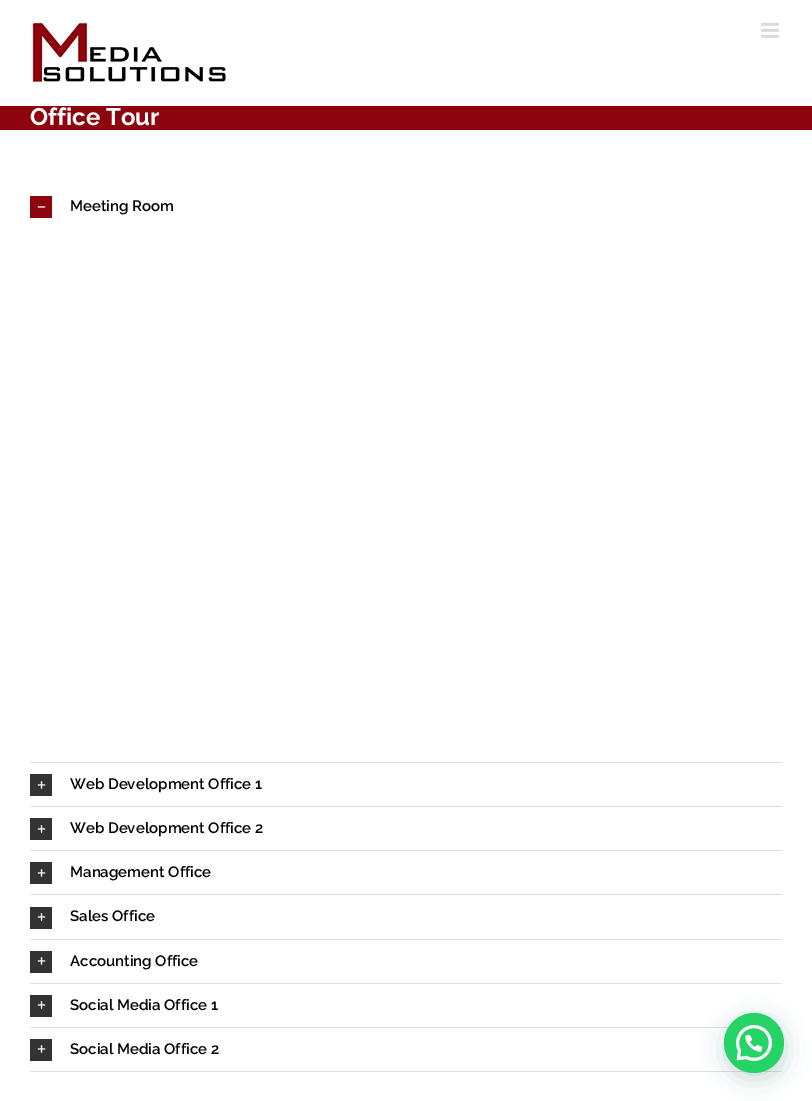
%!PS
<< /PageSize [812 1101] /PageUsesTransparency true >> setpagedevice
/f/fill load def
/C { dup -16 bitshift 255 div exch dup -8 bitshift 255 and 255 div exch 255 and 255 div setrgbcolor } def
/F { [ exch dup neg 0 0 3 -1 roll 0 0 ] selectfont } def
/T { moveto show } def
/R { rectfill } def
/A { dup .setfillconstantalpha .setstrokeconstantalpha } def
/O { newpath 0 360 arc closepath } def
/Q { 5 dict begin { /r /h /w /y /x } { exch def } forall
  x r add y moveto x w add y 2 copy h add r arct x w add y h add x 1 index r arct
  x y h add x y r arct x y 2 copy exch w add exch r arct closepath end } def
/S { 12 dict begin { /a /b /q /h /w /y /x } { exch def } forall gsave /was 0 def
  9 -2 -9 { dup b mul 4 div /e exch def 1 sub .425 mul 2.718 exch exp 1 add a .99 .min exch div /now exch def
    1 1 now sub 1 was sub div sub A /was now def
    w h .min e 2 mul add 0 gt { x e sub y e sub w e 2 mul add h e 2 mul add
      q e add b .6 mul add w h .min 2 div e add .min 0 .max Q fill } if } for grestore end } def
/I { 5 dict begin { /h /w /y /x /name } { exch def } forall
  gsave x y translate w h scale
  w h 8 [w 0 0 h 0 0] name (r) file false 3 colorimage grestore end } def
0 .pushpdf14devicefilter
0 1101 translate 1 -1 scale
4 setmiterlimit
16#FFFFFF C
0 0 812 1101 R
(1.rgb) 31 22 195 64 I
(2.rgb) 761 22 18 16 I
16#8D040E C
0 106 812 24 R
/Raleway-Bold 24 F
16#FFFFFF C
(Office Tour) 30 125 T
16#E0DEDE C
30 762 752 1 R
16#8D050F C
30 196 22 22 R
(3.rgb) 37 206 9 2 I
/Raleway-SemiBold 15 F
16#000000 C
(Meeting Room) 70 211 T
16#E0DEDE C
30 806 752 1 R
16#333333 C
30 774 22 22 R
(4.rgb) 37 781 9 8 I
16#000000 C
(Web Development Office 1) 70 789 T
16#E0DEDE C
30 850 752 1 R
16#333333 C
30 818 22 22 R
(4.rgb) 37 825 9 8 I
16#000000 C
(Web Development Office 2) 70 833 T
16#E0DEDE C
30 894 752 1 R
16#333333 C
30 862 22 22 R
(4.rgb) 37 869 9 8 I
16#000000 C
(Management Office) 70 877 T
16#E0DEDE C
30 939 752 1 R
16#333333 C
30 907 22 22 R
(4.rgb) 37 913 9 8 I
16#000000 C
(Sales Office) 70 921 T
16#E0DEDE C
30 983 752 1 R
16#333333 C
30 951 22 22 R
(4.rgb) 37 957 9 8 I
16#000000 C
(Accounting Office) 70 966 T
16#E0DEDE C
30 1027 752 1 R
16#333333 C
30 995 22 22 R
(4.rgb) 37 1001 9 8 I
16#000000 C
(Social Media Office 1) 70 1010 T
16#E0DEDE C
30 1071 752 1 R
16#333333 C
30 1039 22 22 R
(4.rgb) 37 1045 9 8 I
16#000000 C
(Social Media Office 2) 70 1054 T
16#075E54 C
725 1019 60 60 30 12 .24 S
16#25D366 C
754 1043 30 O f
(5.rgb) 736 1025 36 36 I
.poppdf14devicefilter showpage
